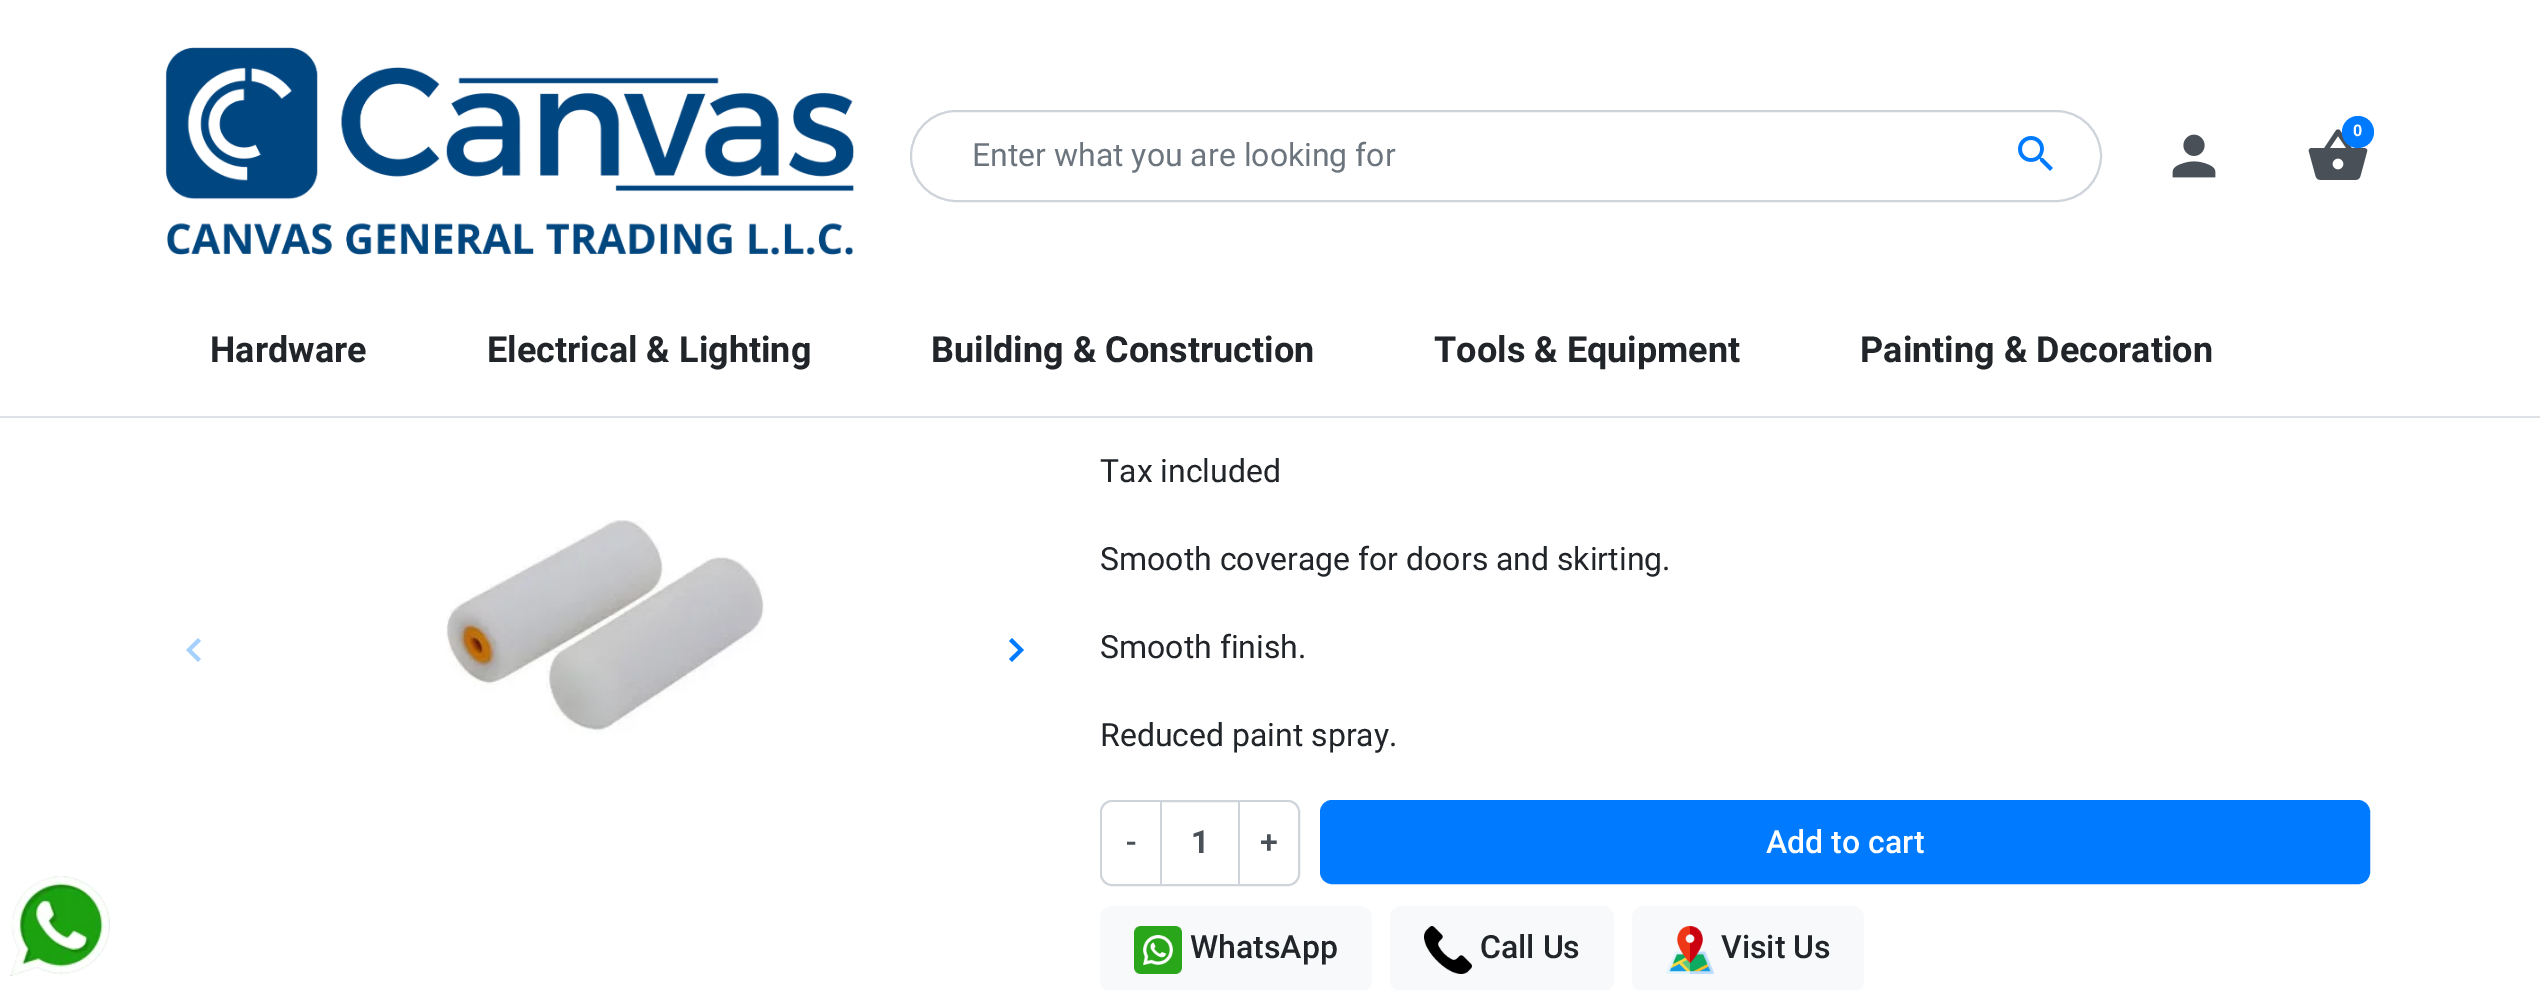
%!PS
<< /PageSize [2540 990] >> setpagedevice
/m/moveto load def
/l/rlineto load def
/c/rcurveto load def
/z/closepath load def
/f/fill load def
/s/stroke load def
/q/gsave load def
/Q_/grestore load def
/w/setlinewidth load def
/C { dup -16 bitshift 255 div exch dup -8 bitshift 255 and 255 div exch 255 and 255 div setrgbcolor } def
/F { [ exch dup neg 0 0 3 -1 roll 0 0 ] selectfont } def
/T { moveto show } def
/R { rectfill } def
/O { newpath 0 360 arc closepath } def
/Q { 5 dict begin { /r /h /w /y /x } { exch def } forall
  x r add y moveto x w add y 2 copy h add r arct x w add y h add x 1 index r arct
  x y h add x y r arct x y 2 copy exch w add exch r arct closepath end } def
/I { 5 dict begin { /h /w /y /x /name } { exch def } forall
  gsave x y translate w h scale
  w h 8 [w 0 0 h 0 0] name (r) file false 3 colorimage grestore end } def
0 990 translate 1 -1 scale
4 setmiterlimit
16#FFFFFF C
0 0 2540 990 R
16#DEE2E6 C
0 416 2540 2 R
(1.rgb) 165 47 689 208 I
(2.rgb) 2308 129 60 51 I
16#007BFF C
2358 132 16 O f
/Roboto-Bold 16 F
16#FFFFFF C
(0) 2353 136 T
16#CED4DA C
2 w
911 111 1190 90 45 Q s
/Roboto-Regular 32 F
16#6C757D C
(Enter what you are looking for) 972 166 T
(3.rgb) 2018 136 35 35 I
(4.rgb) 2172 134 44 44 I
/Roboto-Bold 36 F
16#212529 C
(Hardware) 210 362 T
(Electrical & Lighting) 487 362 T
(Building & Construction) 931 362 T
(Tools & Equipment) 1434 362 T
(Painting & Decoration) 1860 362 T
(5.rgb) 10 876 100 100 I
16#A6D1FF C
201 659 m -3 3 l -12 -12 l 12 -12 l 3 3 l -9.5 9 l z f
(6.rgb) 446 520 318 214 I
16#007BFF C
1009 659 m 9.5 -9 l -9.5 -9 l 3 -3 l 12 12 l -12 12 l z f
/Roboto-Regular 32 F
16#212529 C
(Tax included) 1100 482 T
(Smooth coverage for doors and skirting.) 1100 570 T
(Smooth finish.) 1100 658 T
(Reduced paint spray.) 1100 746 T
16#CED4DA C
1101 801 198 84 11 Q s
q
1102 802 196 82 10 Q clip newpath
16#FFFFFF C
1114 802 m 46 0 l 0 82 l -46 0 l -6.5 0 -12 -5.5 -12 -12 c 0 -58 l 0 -6.5 5.5 -12 12 -12 c z f
Q_
/Roboto-Medium 32 F
16#495057 C
(-) 1126 853 T
16#CED4DA C
1238 802 2 82 R
1160 802 2 82 R
/Roboto-Bold 32 F
16#495057 C
(1) 1191 853 T
q
1102 802 196 82 10 Q clip newpath
16#FFFFFF C
1240 802 m 46 0 l 6.5 0 12 5.5 12 12 c 0 58 l 0 6.5 -5.5 12 -12 12 c -46 0 l z f
Q_
/Roboto-Medium 32 F
(+) 1260 853 T
16#007BFF C
1321 801 1048 82 11 Q q f Q_
s
16#FFFFFF C
(Add to cart) 1766 853 T
16#F8F9FA C
1100 906 272 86 12 Q f
(7.rgb) 1134 926 48 48 I
16#212529 C
(WhatsApp) 1190 958 T
16#F8F9FA C
1390 906 224 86 12 Q f
(8.rgb) 1424 926 48 48 I
16#212529 C
(Call Us) 1480 958 T
16#F8F9FA C
1632 906 232 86 12 Q f
(9.rgb) 1666 926 48 48 I
16#212529 C
(Visit Us) 1721 958 T
showpage
